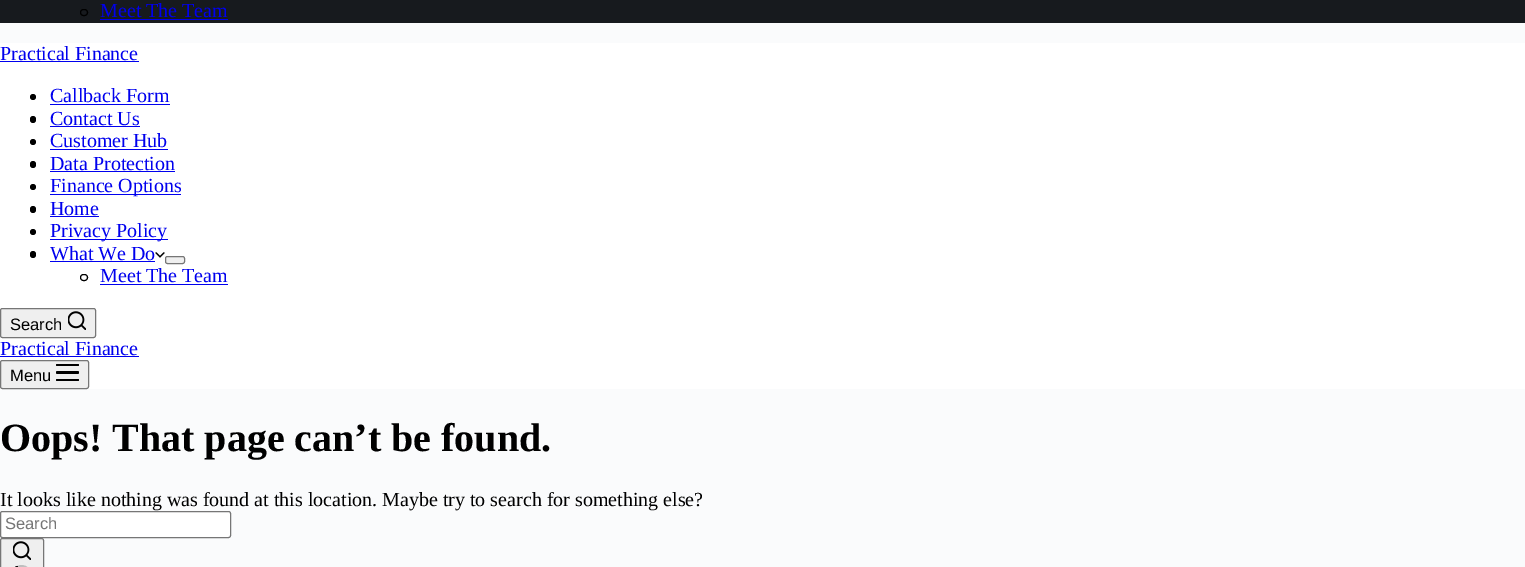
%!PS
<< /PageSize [1525 567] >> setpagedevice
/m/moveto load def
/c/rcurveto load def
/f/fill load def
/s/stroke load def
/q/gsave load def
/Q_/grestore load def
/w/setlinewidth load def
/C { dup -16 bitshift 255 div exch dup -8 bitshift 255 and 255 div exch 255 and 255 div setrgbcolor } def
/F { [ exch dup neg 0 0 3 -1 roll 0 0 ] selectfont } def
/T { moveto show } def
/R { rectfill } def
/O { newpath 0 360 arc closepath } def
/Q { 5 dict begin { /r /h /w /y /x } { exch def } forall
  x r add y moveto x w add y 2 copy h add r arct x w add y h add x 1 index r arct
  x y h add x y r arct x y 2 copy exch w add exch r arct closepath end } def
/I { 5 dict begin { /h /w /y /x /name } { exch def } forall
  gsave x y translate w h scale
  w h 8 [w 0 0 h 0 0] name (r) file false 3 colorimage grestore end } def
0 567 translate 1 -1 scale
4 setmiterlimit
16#FAFBFC C
0 0 1525 567 R
16#171A1E C
0 0 1525 23 R
16#000000 C
80.5 9.5 7 6 3 Q s
/LiberationSerif-Regular 20 F
16#0000EE C
(Meet The Team) 100 17 T
100 19 128 1 R
16#FFFFFF C
0 43 1525 346 R
16#0000EE C
(Practical Finance) 0 60 T
0 61 139 1 R
16#000000 C
33 97 3 O f
16#0000EE C
(Callback Form) 50 102 T
50 104 120 1 R
16#000000 C
30 116 6 7 3 Q f
16#0000EE C
(Contact Us) 50 125 T
50 126 90 1 R
16#000000 C
33 142 3 O f
16#0000EE C
(Customer Hub) 50 147 T
50 149 118 1 R
16#000000 C
30 161 6 7 3 Q f
16#0000EE C
(Data Protection) 50 170 T
50 171 125 1 R
16#000000 C
33 187 3 O f
16#0000EE C
50 194 131 1 R
(Finance Options) 50 192 T
16#000000 C
30 206 6 7 3 Q f
16#0000EE C
(Home) 50 215 T
50 216 49 1 R
16#000000 C
33 232 3 O f
16#0000EE C
50 239 118 1 R
(Privacy Policy) 50 237 T
16#000000 C
30 251 6 7 3 Q f
16#0000EE C
(What We Do) 50 260 T
50 261 105 1 R
(1.rgb) 155 252 10 6 I
16#EFEFEF C
165.5 256.5 19 7 2 Q q f Q_
16#767676 C
s
16#000000 C
80.5 274.5 7 6 3 Q s
16#0000EE C
(Meet The Team) 100 282 T
100 284 128 1 R
16#EFEFEF C
.5 308.5 95 29 2 Q q f Q_
16#767676 C
s
/LiberationSans-Regular 16.5 F
16#000000 C
(Search) 10 330 T
(2.rgb) 68 311 18 19 I
/LiberationSerif-Regular 20 F
16#0000EE C
(Practical Finance) 0 355 T
0 356 139 1 R
16#EFEFEF C
.5 360.5 88 28 2 Q q f Q_
16#767676 C
s
16#000000 C
56 364 23 2 1 Q f
/LiberationSans-Regular 16.5 F
(Menu) 10 381 T
56 371 23 3 1.5 Q f
56 379 23 2 1 Q f
/LiberationSerif-Bold 40 F
(Oops! That page can’t be found.) 0 451 T
/LiberationSerif-Regular 20 F
(It looks like nothing was found at this location. Maybe try to search for something else?) 0 506 T
16#FFFFFF C
.5 511.5 230 26 2 Q q f Q_
16#767676 C
s
/LiberationSans-Regular 16.5 F
16#757575 C
(Search) 5 529 T
16#EFEFEF C
.5 538.5 43 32 2 Q q f Q_
16#767676 C
s
(2.rgb) 13 541 18 19 I
16#BFBFBF C
1.9 w
21.5 575.5 9.5 O s
16#000000 C
1 setlinecap
13.5 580.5 m -3 -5 -1.5 -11 3.5 -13.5 c s
showpage
